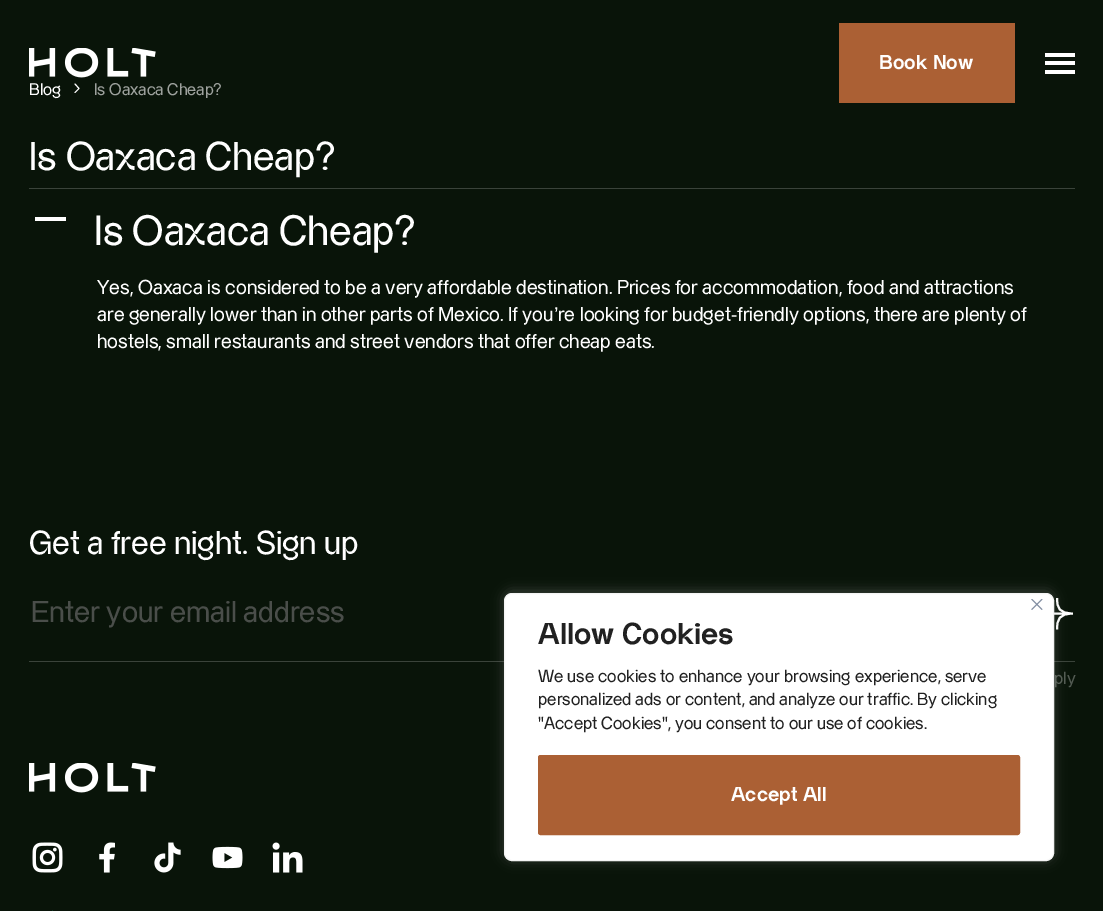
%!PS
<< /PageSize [1103 911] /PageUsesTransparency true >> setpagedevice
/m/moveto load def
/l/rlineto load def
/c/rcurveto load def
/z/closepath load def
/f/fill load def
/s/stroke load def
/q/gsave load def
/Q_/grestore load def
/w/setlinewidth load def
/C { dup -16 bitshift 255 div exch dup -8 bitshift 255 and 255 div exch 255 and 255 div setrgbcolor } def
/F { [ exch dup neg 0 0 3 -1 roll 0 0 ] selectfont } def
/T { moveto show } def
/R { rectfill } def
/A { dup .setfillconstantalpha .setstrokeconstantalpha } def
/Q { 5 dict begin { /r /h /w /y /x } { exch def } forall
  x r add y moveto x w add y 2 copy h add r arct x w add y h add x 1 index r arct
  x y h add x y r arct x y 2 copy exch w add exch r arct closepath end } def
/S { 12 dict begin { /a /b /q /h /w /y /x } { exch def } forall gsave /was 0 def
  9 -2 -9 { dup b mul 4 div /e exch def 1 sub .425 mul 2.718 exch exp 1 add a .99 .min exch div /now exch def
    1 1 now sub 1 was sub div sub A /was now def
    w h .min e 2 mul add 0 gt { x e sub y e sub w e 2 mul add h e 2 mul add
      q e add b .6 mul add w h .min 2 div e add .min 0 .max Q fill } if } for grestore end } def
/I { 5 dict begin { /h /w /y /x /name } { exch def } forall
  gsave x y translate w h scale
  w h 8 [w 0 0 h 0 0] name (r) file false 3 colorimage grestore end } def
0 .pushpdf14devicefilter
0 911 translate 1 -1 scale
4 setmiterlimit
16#091409 C
0 0 1103 911 R
(1.rgb) 29 48 127 30 I
16#AB6034 C
839 23 176 80 R
/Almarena-Bold 20 F
16#FFFFFF C
(Book Now) 879 69 T
1045 53 30 4 R
1045 61 30 4 R
1045 70 30 4 R
/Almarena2-Regular 16.75 F
(Blog) 29 95 T
1 setlinecap
1 setlinejoin
75 84 m 4 4.5 l -4 4 l s
16#9DA19D C
(Is Oaxaca Cheap?) 94 95 T
16#3A433A C
29 188 1046 1 R
/Almarena-Regular 40 F
16#FFFFFF C
(Is Oaxaca Cheap?) 29 170 T
35 217 31 4 R
/Almarena-Regular 42 F
(Is Oaxaca Cheap?) 94 245 T
/Almarena2-Regular 20 F
(Yes, Oaxaca is considered to be a very affordable destination. Prices for accommodation, food and attractions) 97 294 T
(are generally lower than in other parts of Mexico. If you re looking for budget-friendly options, there are plenty of) 97 321 T
/LiberationSans-Regular 20 F
(’) 554 321 T
/Almarena2-Regular 20 F
(hostels, small restaurants and street vendors that offer cheap eats.) 97 348 T
/Almarena-Regular 33 F
(Get a free night. Sign up) 29 554 T
16#3A433A C
29 661 475 1 R
/Almarena2-Regular 30 F
16#4A4E4A C
(Enter your email address) 31 622 T
16#3A433A C
1054 661 21 1 R
q
1031 629.5 m 0 -31.5 l 41.5 0 l 0 31.5 l z clip newpath
16#FFFFFF C
2 w
0 setlinecap
0 setlinejoin
1031.5 613.5 m 41.5 0 l 1073 613.5 m -14 0 -16 -5.5 -16 -15.5 c 1073 613.5 m -14 0 -16 6 -16 16 c s
Q_
/Almarena2-Regular 17.5 F
16#535B53 C
(ply) 1054 684 T
(1.rgb) 29 763 127 30 I
(2.rgb) 32 842 31 31 I
(3.rgb) 99 842 16 31 I
(4.rgb) 154 842 27 31 I
(5.rgb) 212 846 31 23 I
(6.rgb) 272 842 31 31 I
16#0D3420 C
52 910 1 1 R
16#ACABAB C
504 591 550 269 8 6 .3 S
16#FFFFFF C
504.5 593.5 549 267 7.5 Q q f Q_
16#F4F4F4 C
0 setlinecap
0 setlinejoin
s
(7.rgb) 1031 599 12 11 I
/Almarena2-Bold 30 F
16#212121 C
(Allow Cookies) 538 644 T
/Almarena2-Regular 17.5 F
(We use cookies to enhance your browsing experience, serve) 538 682 T
(personalized ads or content, and analyze our traffic. By clicking) 538 705 T
("Accept Cookies", you consent to our use of cookies.) 538 729 T
16#AB6034 C
539.5 756.5 479 77 1 Q q f Q_
3 w
s
/Almarena-Bold 20 F
16#FFFFFF C
(Accept All) 731 801 T
.poppdf14devicefilter showpage
